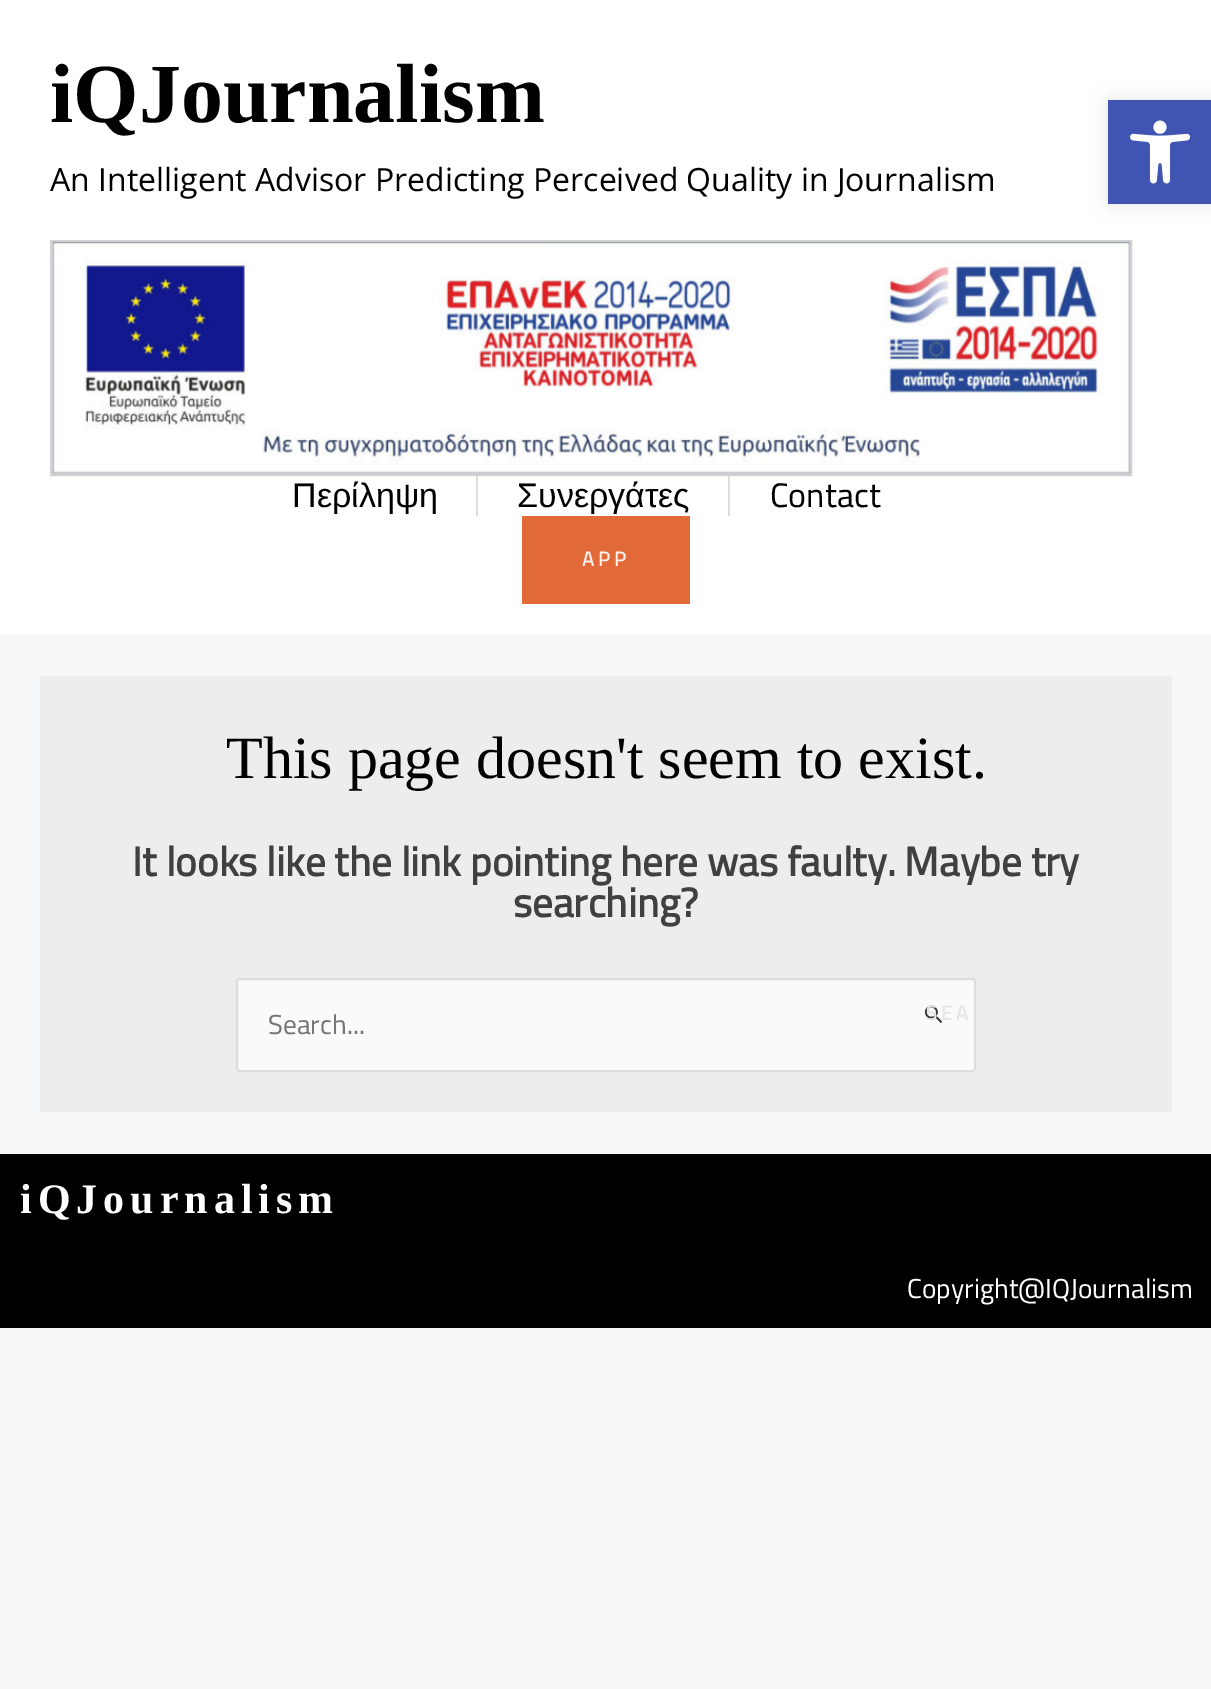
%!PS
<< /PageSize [1211 1689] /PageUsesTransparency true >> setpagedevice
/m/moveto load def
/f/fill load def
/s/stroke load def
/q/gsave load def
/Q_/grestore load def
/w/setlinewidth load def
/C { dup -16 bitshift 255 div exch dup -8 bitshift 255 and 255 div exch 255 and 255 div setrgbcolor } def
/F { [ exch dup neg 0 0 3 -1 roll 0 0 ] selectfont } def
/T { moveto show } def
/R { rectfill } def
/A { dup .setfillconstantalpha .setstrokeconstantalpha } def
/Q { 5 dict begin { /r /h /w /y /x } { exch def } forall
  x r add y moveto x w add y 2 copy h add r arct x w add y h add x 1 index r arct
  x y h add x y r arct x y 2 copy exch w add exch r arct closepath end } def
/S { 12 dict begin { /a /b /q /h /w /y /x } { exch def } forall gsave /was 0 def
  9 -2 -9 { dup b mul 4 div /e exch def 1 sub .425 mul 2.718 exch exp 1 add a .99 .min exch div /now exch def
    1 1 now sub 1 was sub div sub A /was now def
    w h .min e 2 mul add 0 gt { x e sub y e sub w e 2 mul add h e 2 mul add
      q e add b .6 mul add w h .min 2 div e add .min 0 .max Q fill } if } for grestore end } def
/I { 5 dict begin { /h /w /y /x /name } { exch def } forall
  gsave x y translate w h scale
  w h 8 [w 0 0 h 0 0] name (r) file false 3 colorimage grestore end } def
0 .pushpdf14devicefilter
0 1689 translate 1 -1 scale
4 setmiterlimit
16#F6F7F8 C
0 0 1211 1689 R
16#FFFFFF C
0 0 1211 634 R
/LiberationSerif-Bold 84 F
16#000000 C
(iQJournalism) 50 122 T
/OpenSans-Regular 32 F
(An Intelligent Advisor Predicting Perceived Quality in Journalism) 50 191 T
16#D3D3D3 C
2 w
51 241 1080 234 rectstroke
(1.rgb) 52 241 1079 234 I
/LiberationSans-Regular 34 F
16#000000 C
(Περίληψη) 292 507 T
16#DDDDDD C
476 476 2 40 R
16#000000 C
(Συνεργάτες) 517 507 T
16#DDDDDD C
728 476 2 40 R
/Cairo-Regular 34 F
16#000000 C
(Contact) 770 507 T
16#E16A38 C
522 516 168 88 R
/Cairo-Bold 20 F
16#FCF0EB C
582 566 m 4 0 (APP) ashow
16#EDEDED C
40 676 1132 436 R
/LiberationSerif-Regular 60 F
16#000000 C
(This page doesn't seem to exist.) 226 778 T
/Cairo-Bold 41 F
16#404040 C
(It looks like the link pointing here was faulty. Maybe try) 132 876 T
(searching?) 513 917 T
16#FAFAFA C
237 979 738 92 3 Q q f Q_
16#DDDDDD C
s
/Cairo-Regular 27.4 F
16#757575 C
(Search...) 268 1034 T
(2.rgb) 924 1005 18 19 I
/Cairo-Bold 20 F
16#E4E4E4 C
926 1020 m 4 0 (SEA) ashow
16#000000 C
0 1154 1211 174 R
/LiberationSerif-Bold 42 F
16#FFFFFF C
20 1213 m 6 0 (iQJournalism) ashow
/Cairo-Regular 27.4 F
(Copyright@IQJournalism) 907 1298 T
16#000000 C
1108 100 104 104 0 10 .1 S
16#4054B2 C
1108 100 103 104 R
(3.rgb) 1130 120 61 64 I
.poppdf14devicefilter showpage
